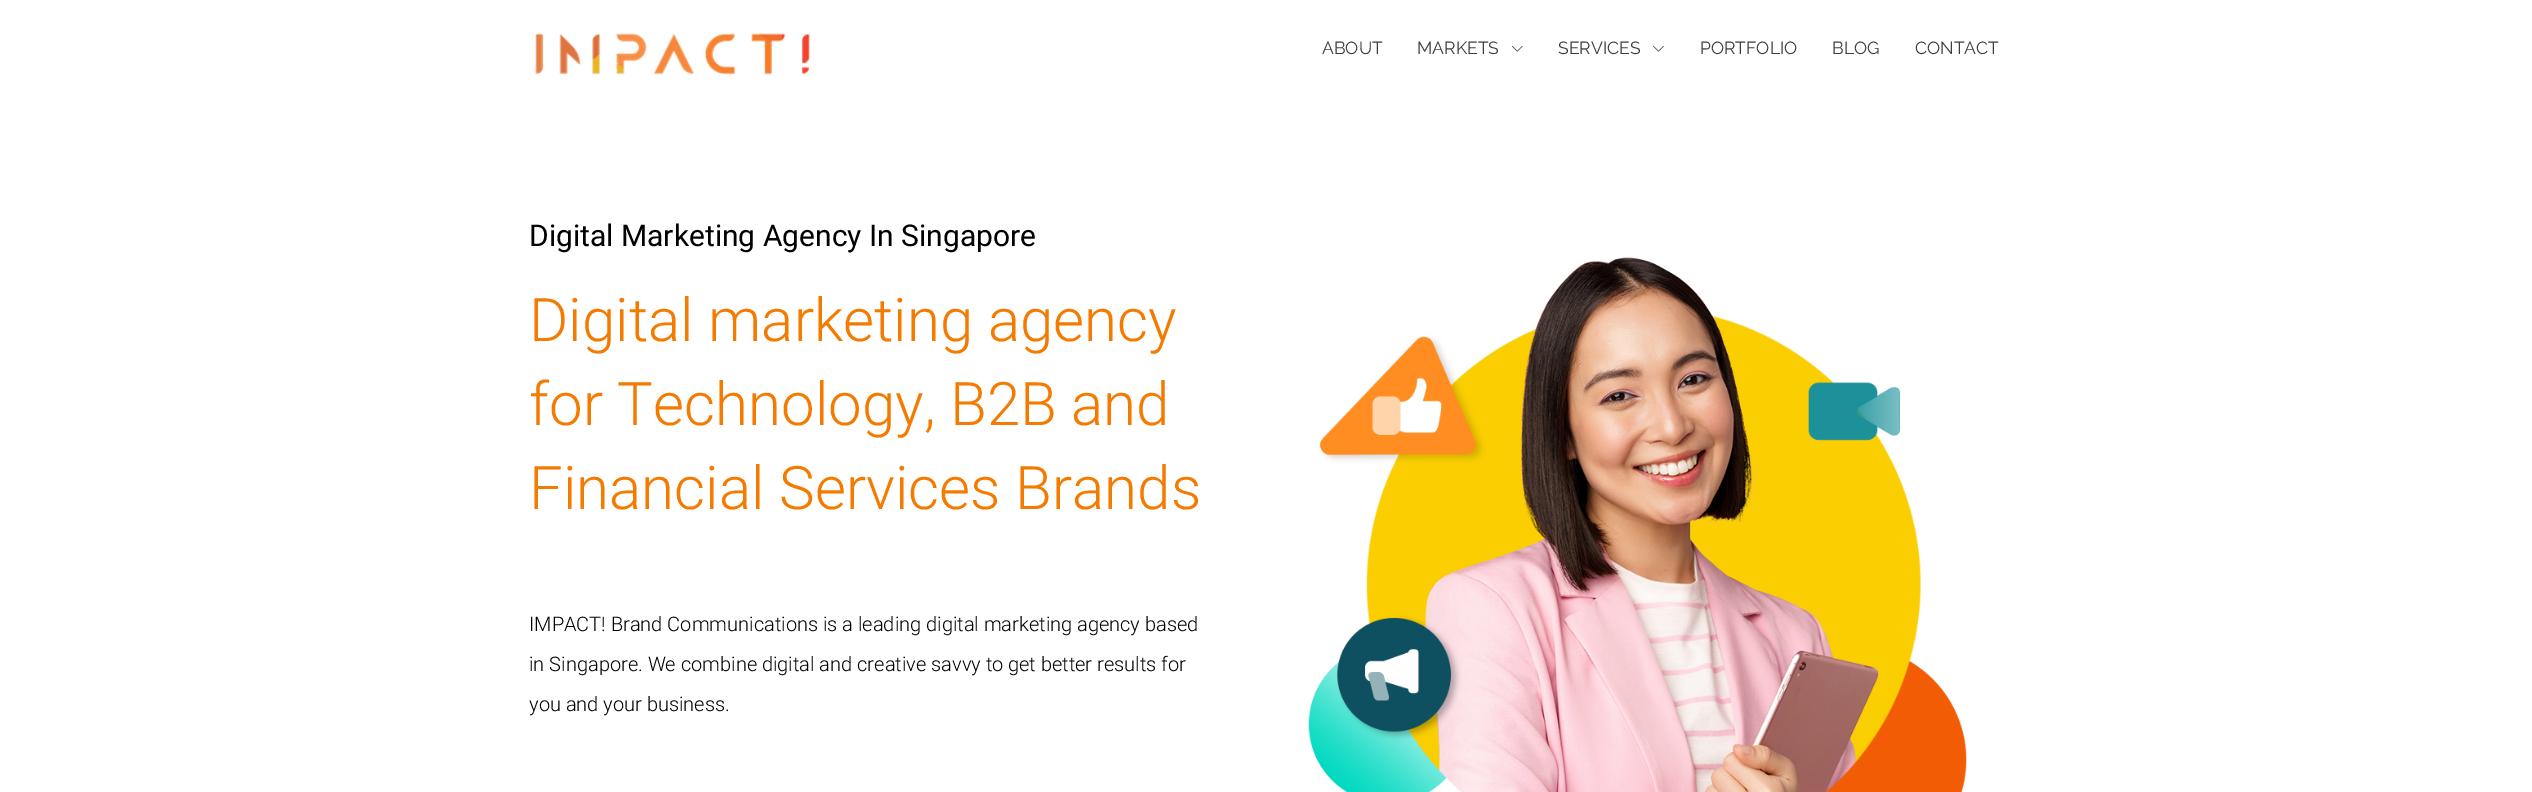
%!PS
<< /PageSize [2532 792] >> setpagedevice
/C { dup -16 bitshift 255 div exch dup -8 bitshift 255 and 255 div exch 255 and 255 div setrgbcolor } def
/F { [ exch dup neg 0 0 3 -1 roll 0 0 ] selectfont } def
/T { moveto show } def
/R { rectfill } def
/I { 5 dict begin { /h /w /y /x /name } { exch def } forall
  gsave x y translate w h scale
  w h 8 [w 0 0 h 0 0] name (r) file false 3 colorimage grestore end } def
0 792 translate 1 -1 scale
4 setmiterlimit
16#FFFFFF C
0 0 2532 792 R
(1.rgb) 535 33 275 42 I
/Raleway-Regular 17.5 F
16#3D3D3D C
(ABOUT) 1322 54 T
(MARKETS) 1417 54 T
(2.rgb) 1511 45 12 7 I
(SERVICES) 1558 54 T
(3.rgb) 1653 45 11 7 I
(PORTFOLIO) 1700 54 T
(BLOG) 1832 54 T
(CONTACT) 1915 54 T
/Roboto-Regular 30 F
16#000000 C
(Digital Marketing Agency In Singapore) 529 246 T
/Roboto-Light 60 F
16#F47A00 C
(Digital marketing agency) 529 341 T
(for Technology, B2B and) 529 425 T
(Financial Services Brands) 529 509 T
/Roboto-Light 20 F
16#000000 C
(IMPACT! Brand Communications is a leading digital marketing agency based) 529 631 T
(in Singapore. We combine digital and creative savvy to get better results for) 529 671 T
(you and your business.) 529 711 T
(4.rgb) 1308 257 659 535 I
showpage
